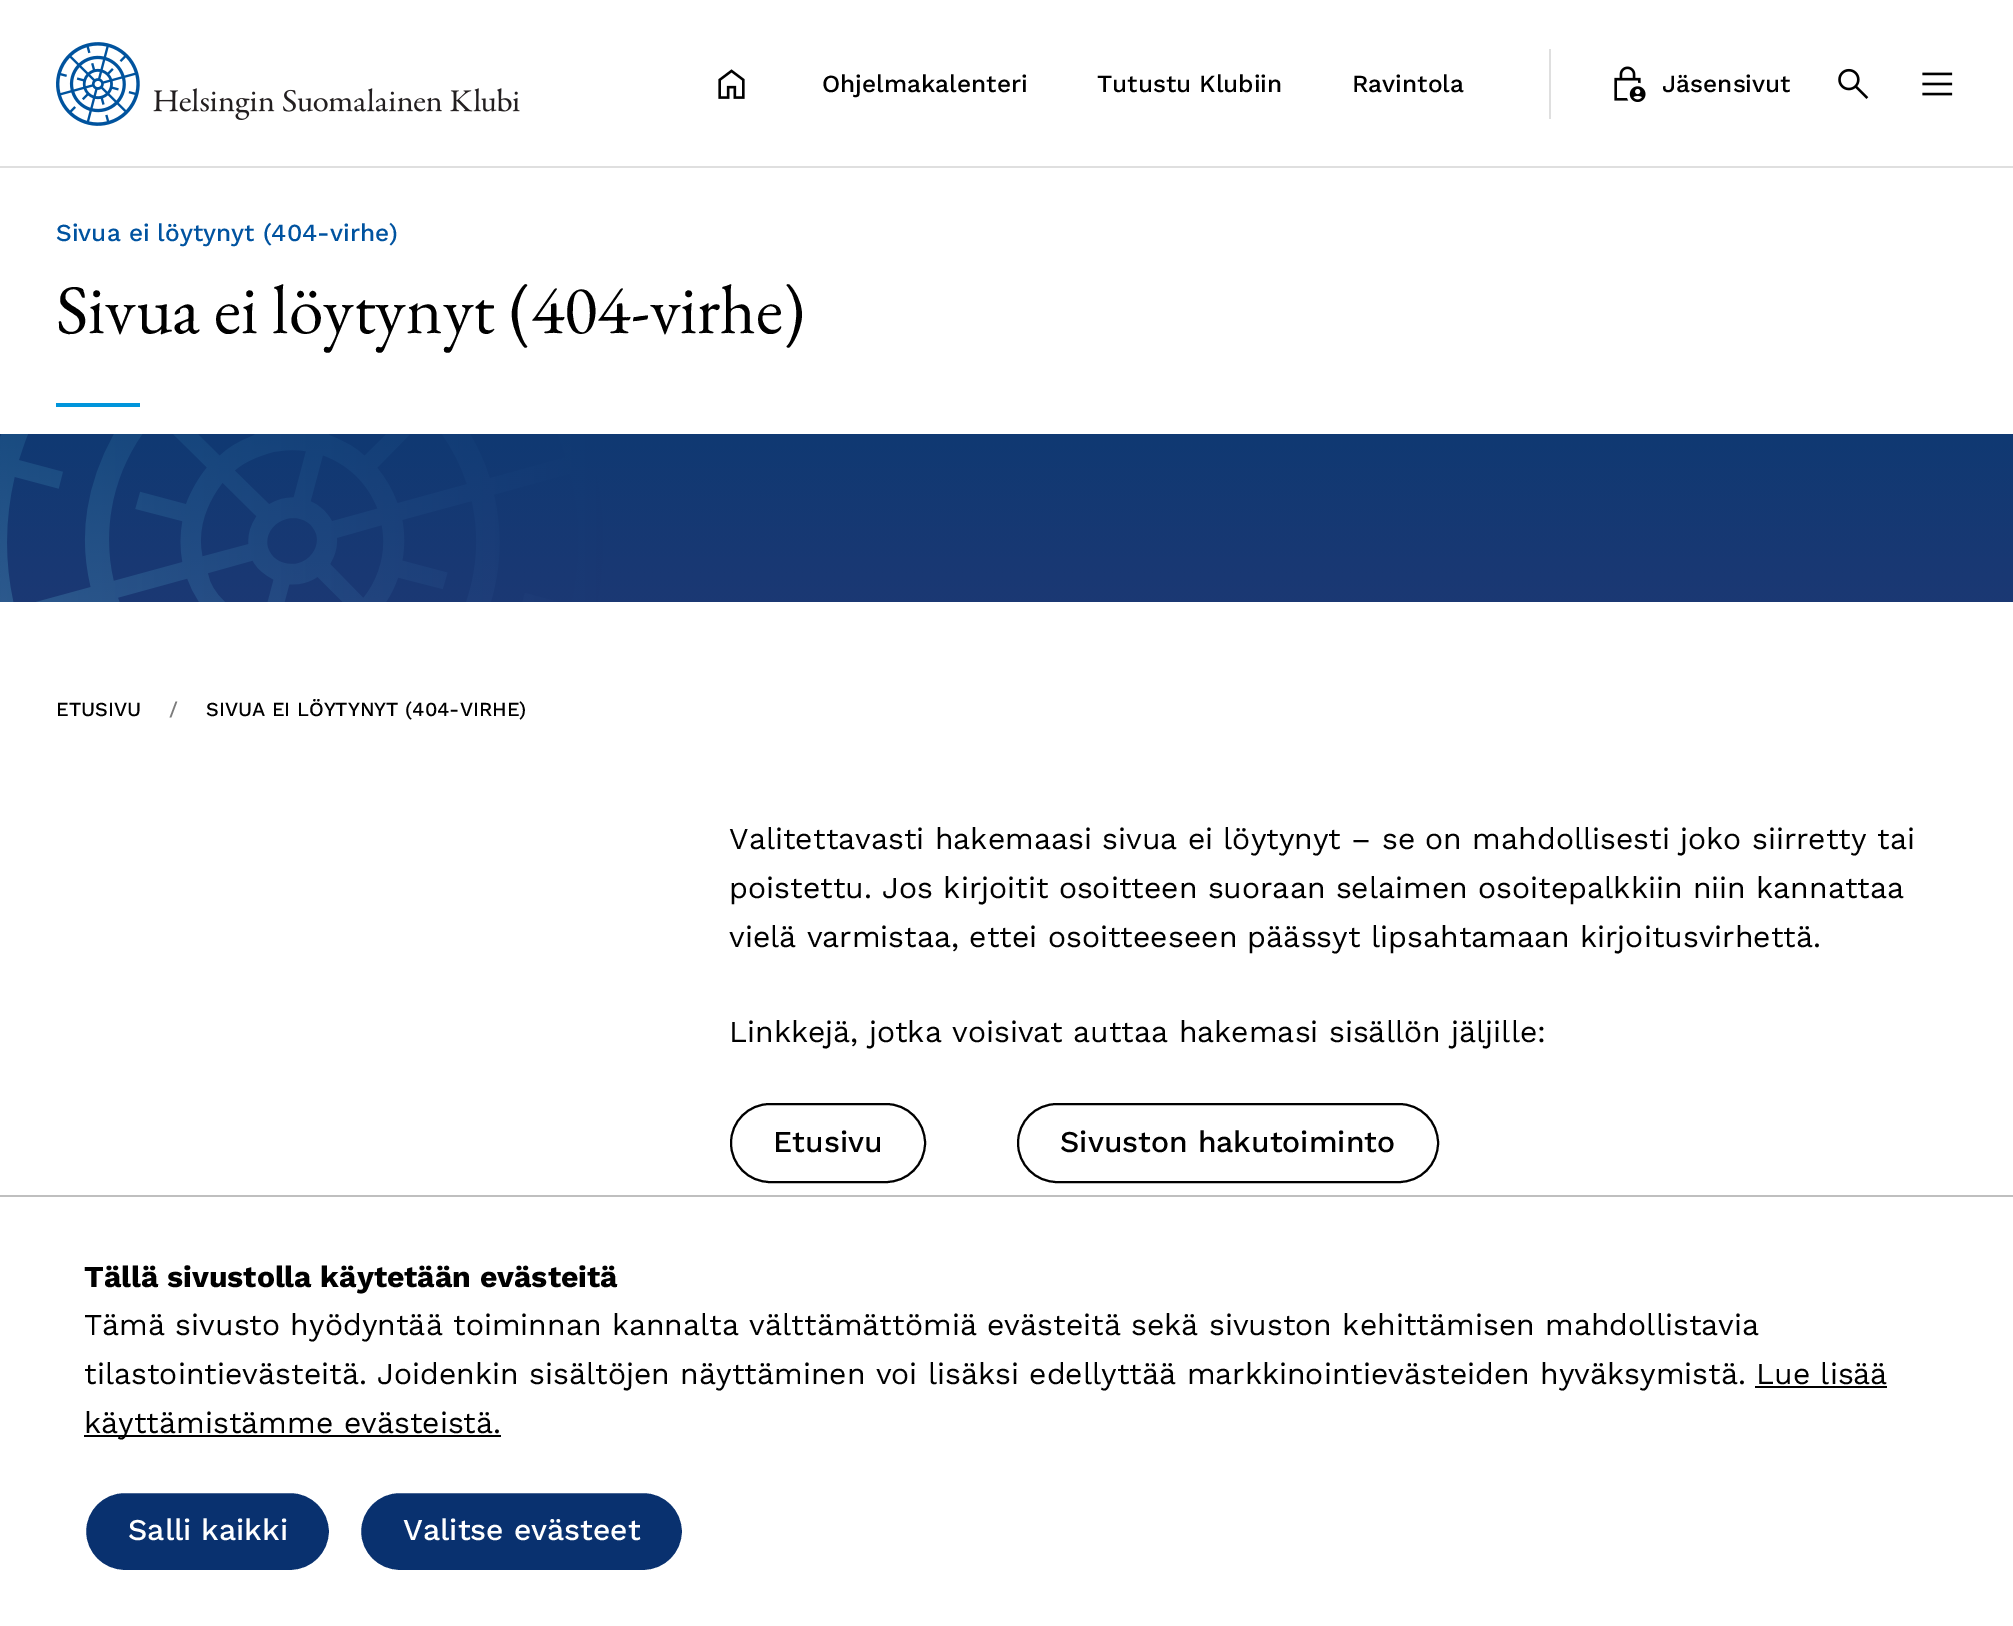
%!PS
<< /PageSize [2013 1626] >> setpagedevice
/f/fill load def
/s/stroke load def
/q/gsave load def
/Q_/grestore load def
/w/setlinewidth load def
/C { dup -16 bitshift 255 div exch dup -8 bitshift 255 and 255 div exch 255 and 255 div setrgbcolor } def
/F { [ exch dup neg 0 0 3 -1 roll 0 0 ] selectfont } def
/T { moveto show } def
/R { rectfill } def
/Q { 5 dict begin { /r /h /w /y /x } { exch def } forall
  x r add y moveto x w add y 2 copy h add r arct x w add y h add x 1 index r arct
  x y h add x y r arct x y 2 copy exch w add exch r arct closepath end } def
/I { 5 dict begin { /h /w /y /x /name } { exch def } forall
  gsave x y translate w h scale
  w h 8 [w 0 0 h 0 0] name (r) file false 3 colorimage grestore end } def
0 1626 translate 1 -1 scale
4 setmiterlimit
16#FFFFFF C
0 0 2013 1626 R
(1.rgb) 56 42 464 84 I
(2.rgb) 718 69 27 30 I
/WorkSans-Medium 24.5 F
16#000000 C
(Ohjelmakalenteri) 822 92 T
(Tutustu Klubiin) 1097 92 T
(Ravintola) 1352 92 T
16#DFDFDF C
1549 49 2 70 R
(3.rgb) 1614 66 32 36 I
16#000000 C
(Jäsensivut) 1662 92 T
(4.rgb) 1838 68 31 31 I
(5.rgb) 1922 72 31 24 I
16#DFDFDF C
0 166 2013 2 R
16#0053A0 C
(Sivua ei löytynyt \(404-virhe\)) 56 241 T
/EBGaramond-Regular 69.5 F
16#000000 C
(Sivua ei löytynyt \(404-virhe\)) 56 333 T
16#0095DB C
56 403 84 4 R
(6.rgb) 0 434 2013 168 I
/WorkSans-Medium 19.9 F
16#000000 C
(ETUSIVU) 56 716 T
16#7C7C7C C
(/) 169 716 T
16#000000 C
(SIVUA EI LÖYTYNYT \(404-VIRHE\)) 206 716 T
/WorkSans-Regular 30.15 F
(Valitettavasti hakemaasi sivua ei löytynyt – se on mahdollisesti joko siirretty tai) 729 849 T
(poistettu. Jos kirjoitit osoitteen suoraan selaimen osoitepalkkiin niin kannattaa) 729 898 T
(vielä varmistaa, ettei osoitteeseen päässyt lipsahtamaan kirjoitusvirhettä.) 729 947 T
(Linkkejä, jotka voisivat auttaa hakemasi sisällön jäljille:) 729 1042 T
2 w
731 1104 194 78 39 Q s
/WorkSans-Medium 30.15 F
(Etusivu) 773 1152 T
1018 1104 420 78 39 Q s
(Sivuston hakutoiminto) 1060 1152 T
16#BFBFBF C
0 1195 2013 2 R
/WorkSans-Bold 30.15 F
16#000000 C
(Tällä sivustolla käytetään evästeitä) 84 1287 T
/WorkSans-Regular 30.15 F
(Tämä sivusto hyödyntää toiminnan kannalta välttämättömiä evästeitä sekä sivuston kehittämisen mahdollistavia) 84 1335 T
(tilastointievästeitä. Joidenkin sisältöjen näyttäminen voi lisäksi edellyttää markkinointievästeiden hyväksymistä.) 84 1384 T
(Lue lisää) 1756 1384 T
1755 1386 132 2 R
84 1435 417 2 R
(käyttämistämme evästeistä.) 84 1433 T
16#09316F C
85 1492 245 79 39.5 Q q f Q_
16#FFFFFF C
s
/WorkSans-Medium 30.15 F
(Salli kaikki) 128 1540 T
16#09316F C
360 1492 323 79 39.5 Q q f Q_
16#FFFFFF C
s
(Valitse evästeet) 403 1540 T
showpage
